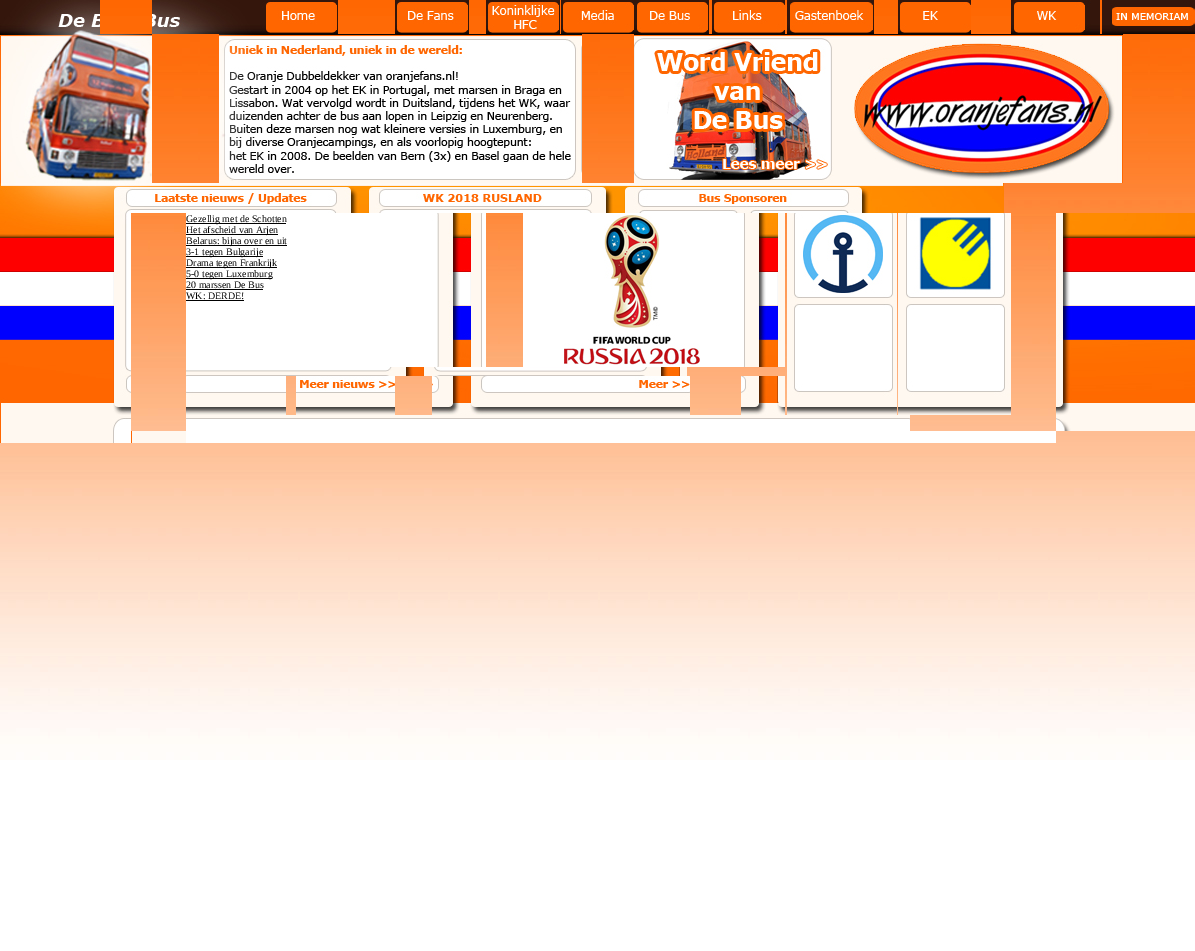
%!PS
<< /PageSize [1195 951] >> setpagedevice
/C { dup -16 bitshift 255 div exch dup -8 bitshift 255 and 255 div exch 255 and 255 div setrgbcolor } def
/F { [ exch dup neg 0 0 3 -1 roll 0 0 ] selectfont } def
/T { moveto show } def
/R { rectfill } def
/I { 5 dict begin { /h /w /y /x /name } { exch def } forall
  gsave x y translate w h scale
  w h 8 [w 0 0 h 0 0] name (r) file false 3 colorimage grestore end } def
0 951 translate 1 -1 scale
4 setmiterlimit
16#FFFFFF C
0 0 1195 951 R
(1.rgb) 0 0 1195 760 I
(2.rgb) 0 0 100 34 I
(3.rgb) 152 0 101 34 I
(4.rgb) 253 0 85 34 I
(5.rgb) 395 0 74 34 I
(6.rgb) 486 0 74 34 I
(7.rgb) 561 0 73 34 I
(8.rgb) 634 0 75 34 I
(9.rgb) 712 0 73 34 I
(10.rgb) 787 0 87 34 I
(11.rgb) 898 0 73 34 I
(12.rgb) 1011 0 89 34 I
(13.rgb) 1102 0 93 34 I
(14.rgb) 0 34 152 149 I
(15.rgb) 219 34 363 149 I
(16.rgb) 634 34 209 149 I
(17.rgb) 843 34 280 149 I
(18.rgb) 0 183 1004 30 I
(19.rgb) 0 213 131 202 I
186 213 246 154 R
16#000000 C
186 223 100 1 R
/LiberationSerif-Regular 10 F
(Gezellig met de Schotten) 186 222 T
186 234 92 1 R
(Het afscheid van Arjen) 186 233 T
186 245 101 1 R
(Belarus: bijna over en uit) 186 244 T
186 256 77 1 R
(3-1 tegen Bulgarije) 186 255 T
186 267 91 1 R
(Drama tegen Frankrijk) 186 266 T
186 278 86 1 R
(5-0 tegen Luxemburg) 186 277 T
(20 marssen De Bus) 186 288 T
186 289 77 1 R
(WK: DERDE!) 186 299 T
186 300 58 1 R
(20.rgb) 432 213 54 154 I
16#FFFFFF C
523 213 218 154 R
(21.rgb) 564 215 136 150 I
(22.rgb) 741 213 44 154 I
(23.rgb) 787 213 110 202 I
(24.rgb) 898 213 113 202 I
(25.rgb) 1056 213 139 202 I
(26.rgb) 186 367 501 9 I
(27.rgb) 186 376 100 39 I
(28.rgb) 296 376 99 15 I
(29.rgb) 432 376 203 39 I
(30.rgb) 635 376 55 15 I
(31.rgb) 741 376 44 39 I
(32.rgb) 296 391 99 24 I
(33.rgb) 635 391 55 24 I
(34.rgb) 0 415 131 16 I
(35.rgb) 186 415 724 16 I
(36.rgb) 1056 415 139 16 I
(37.rgb) 0 431 186 12 I
186 431 870 12 R
showpage
